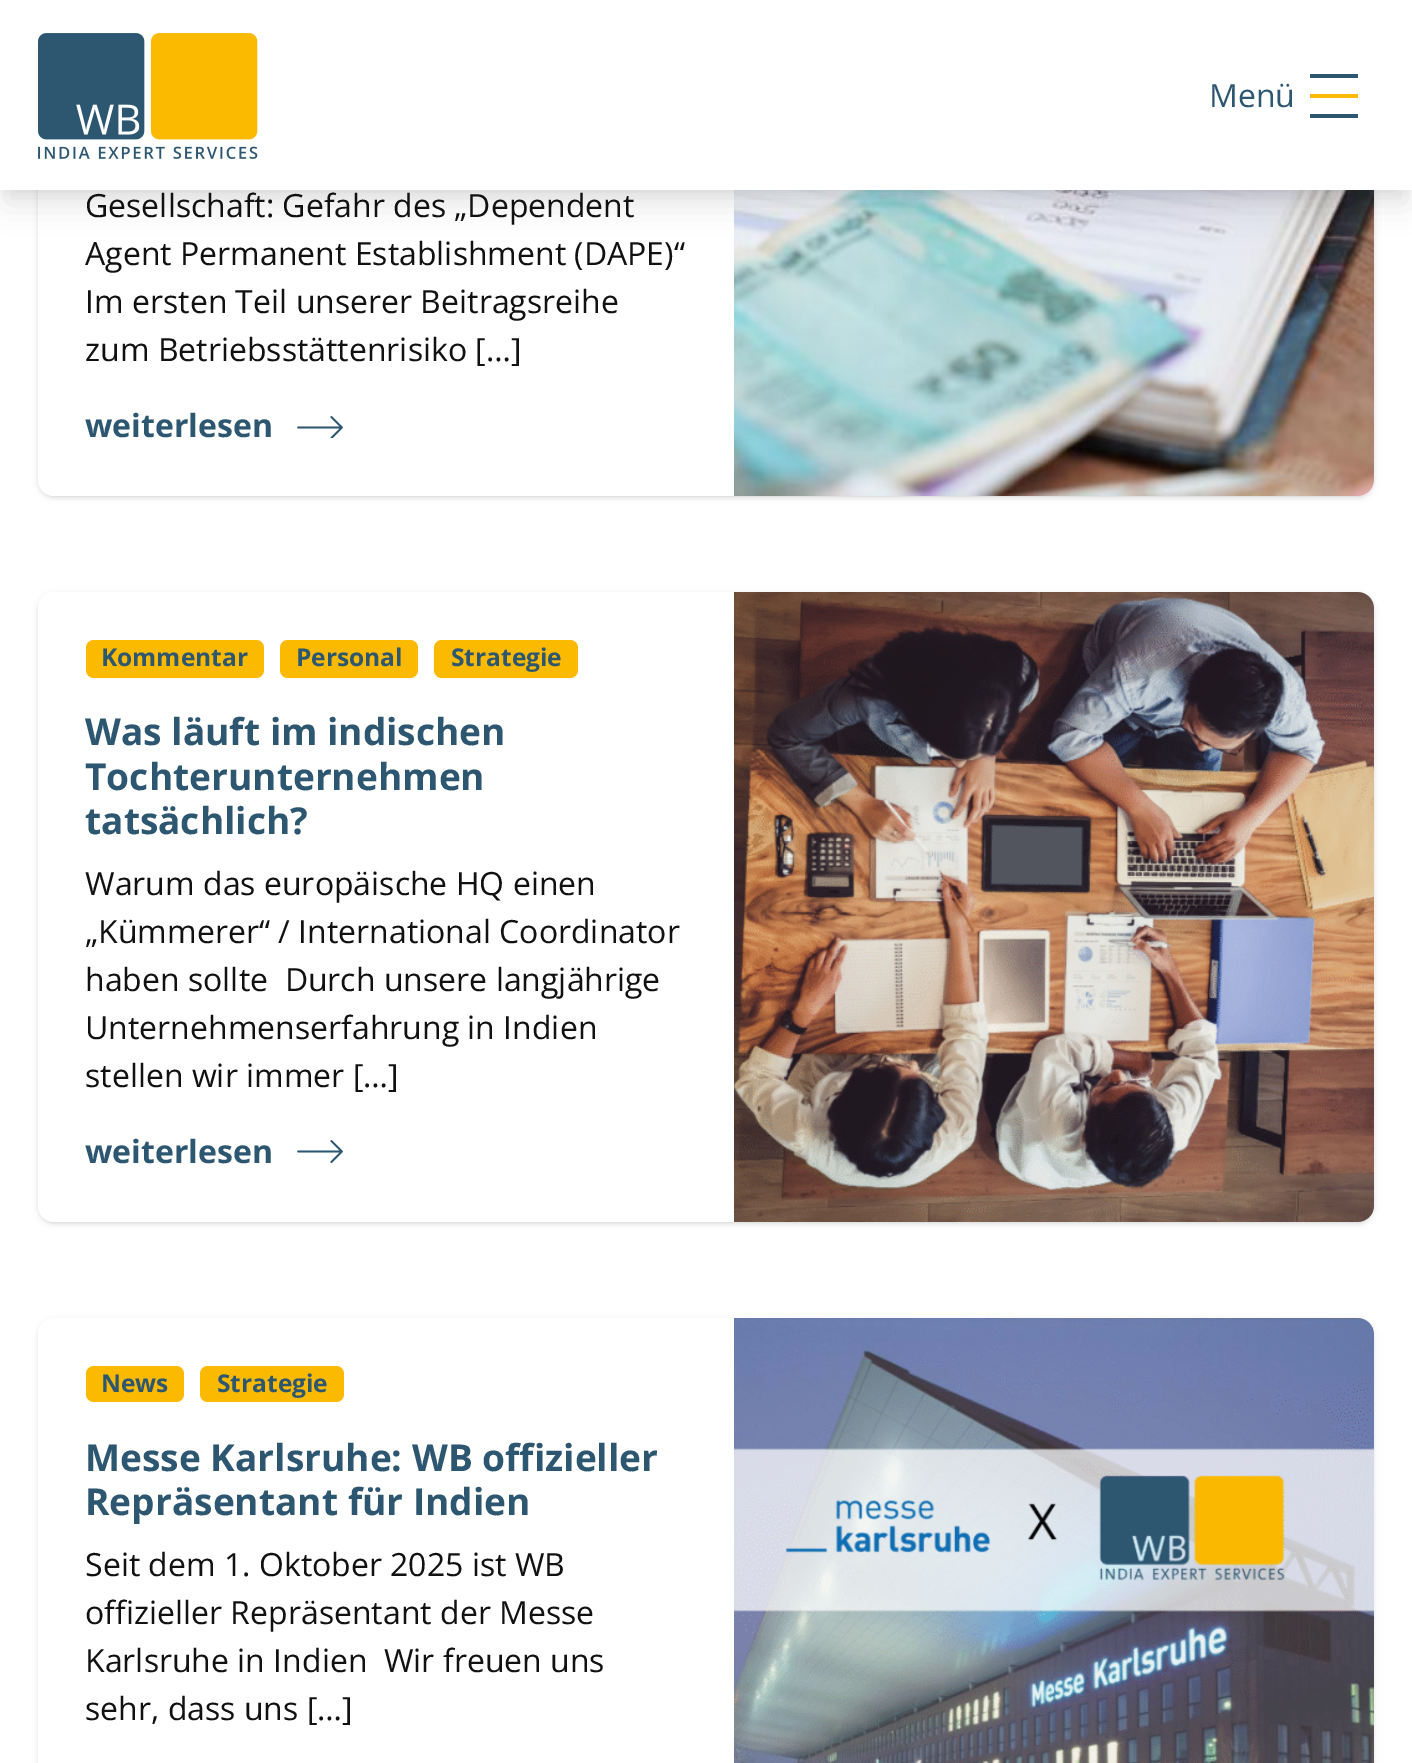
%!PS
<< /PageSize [1412 1763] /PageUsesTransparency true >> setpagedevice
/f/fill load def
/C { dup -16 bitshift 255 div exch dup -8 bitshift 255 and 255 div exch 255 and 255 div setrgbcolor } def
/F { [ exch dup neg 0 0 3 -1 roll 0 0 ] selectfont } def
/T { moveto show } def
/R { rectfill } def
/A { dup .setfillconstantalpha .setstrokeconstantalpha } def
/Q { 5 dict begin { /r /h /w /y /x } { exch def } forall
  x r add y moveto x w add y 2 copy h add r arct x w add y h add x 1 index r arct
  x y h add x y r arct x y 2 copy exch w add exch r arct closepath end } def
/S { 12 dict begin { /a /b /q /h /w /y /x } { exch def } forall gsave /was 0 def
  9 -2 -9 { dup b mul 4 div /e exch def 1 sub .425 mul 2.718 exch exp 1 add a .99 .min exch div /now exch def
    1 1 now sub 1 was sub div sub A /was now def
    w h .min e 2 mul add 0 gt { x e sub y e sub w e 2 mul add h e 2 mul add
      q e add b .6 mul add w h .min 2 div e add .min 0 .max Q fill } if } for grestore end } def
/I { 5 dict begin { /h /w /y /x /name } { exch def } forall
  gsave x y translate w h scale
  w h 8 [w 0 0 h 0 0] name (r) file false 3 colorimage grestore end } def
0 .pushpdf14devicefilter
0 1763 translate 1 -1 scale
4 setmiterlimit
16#FFFFFF C
0 0 1412 1763 R
16#000000 C
40 -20 1332 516 14 2 .1 S
38 -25 1336 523 16 3 .1 S
16#FFFFFF C
38 -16 1336 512 16 Q f
(3.rgb) 734 190 640 306 I
16#000000 C
4 12 1404 182 0 6 .05 S
6 26 1400 178 0 15 .1 S
16#FFFFFF C
0 0 1412 190 R
(1.rgb) 38 33 220 126 I
/OpenSans-Regular 32 F
16#2D5770 C
(Menü) 1209 107 T
1310 74 48 4 R
16#FBBA00 C
1310 94 48 4 R
16#2D5770 C
1310 114 48 4 R
16#111111 C
(Gesellschaft: Gefahr des „Dependent) 85 217 T
(Agent Permanent Establishment \(DAPE\)“) 85 265 T
(Im ersten Teil unserer Beitragsreihe) 85 313 T
(zum Betriebsstättenrisiko […]) 85 361 T
/OpenSans-Bold 32 F
16#2D5770 C
(weiterlesen) 85 437 T
(2.rgb) 297 416 46 22 I
16#000000 C
40 596 1332 626 14 2 .1 S
38 594 1336 630 16 3 .1 S
16#FFFFFF C
38 592 1336 630 16 Q f
16#FBBA00 C
86 640 178 38 8 Q f
/OpenSans-Bold 24.5 F
16#2D5770 C
(Kommentar) 101 666 T
16#FBBA00 C
280 640 138 38 8 Q f
16#2D5770 C
(Personal) 296 666 T
16#FBBA00 C
434 640 144 38 8 Q f
16#2D5770 C
(Strategie) 451 666 T
/OpenSans-Bold 37.1 F
(Was läuft im indischen) 85 745 T
(Tochterunternehmen) 85 790 T
(tatsächlich?) 85 834 T
/OpenSans-Regular 32 F
16#111111 C
(Warum das europäische HQ einen) 85 895 T
(„Kümmerer“ / International Coordinator) 85 943 T
(haben sollte  Durch unsere langjährige) 85 991 T
(Unternehmenserfahrung in Indien) 85 1039 T
(stellen wir immer […]) 85 1087 T
/OpenSans-Bold 32 F
16#2D5770 C
(weiterlesen) 85 1163 T
(4.rgb) 297 1140 46 23 I
(5.rgb) 734 592 640 630 I
16#000000 C
38 1320 1336 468 16 3 .1 S
16#FFFFFF C
38 1318 1336 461 16 Q f
16#FBBA00 C
86 1366 98 36 8 Q f
/OpenSans-Bold 24.5 F
16#2D5770 C
(News) 101 1392 T
16#FBBA00 C
200 1366 144 36 8 Q f
16#2D5770 C
(Strategie) 217 1392 T
/OpenSans-Bold 37.1 F
(Messe Karlsruhe: WB offizieller) 85 1471 T
(Repräsentant für Indien) 85 1515 T
/OpenSans-Regular 32 F
16#111111 C
(Seit dem 1. Oktober 2025 ist WB) 85 1576 T
(offizieller Repräsentant der Messe) 85 1624 T
(Karlsruhe in Indien  Wir freuen uns) 85 1672 T
(sehr, dass uns […]) 85 1720 T
(6.rgb) 734 1318 640 445 I
.poppdf14devicefilter showpage
